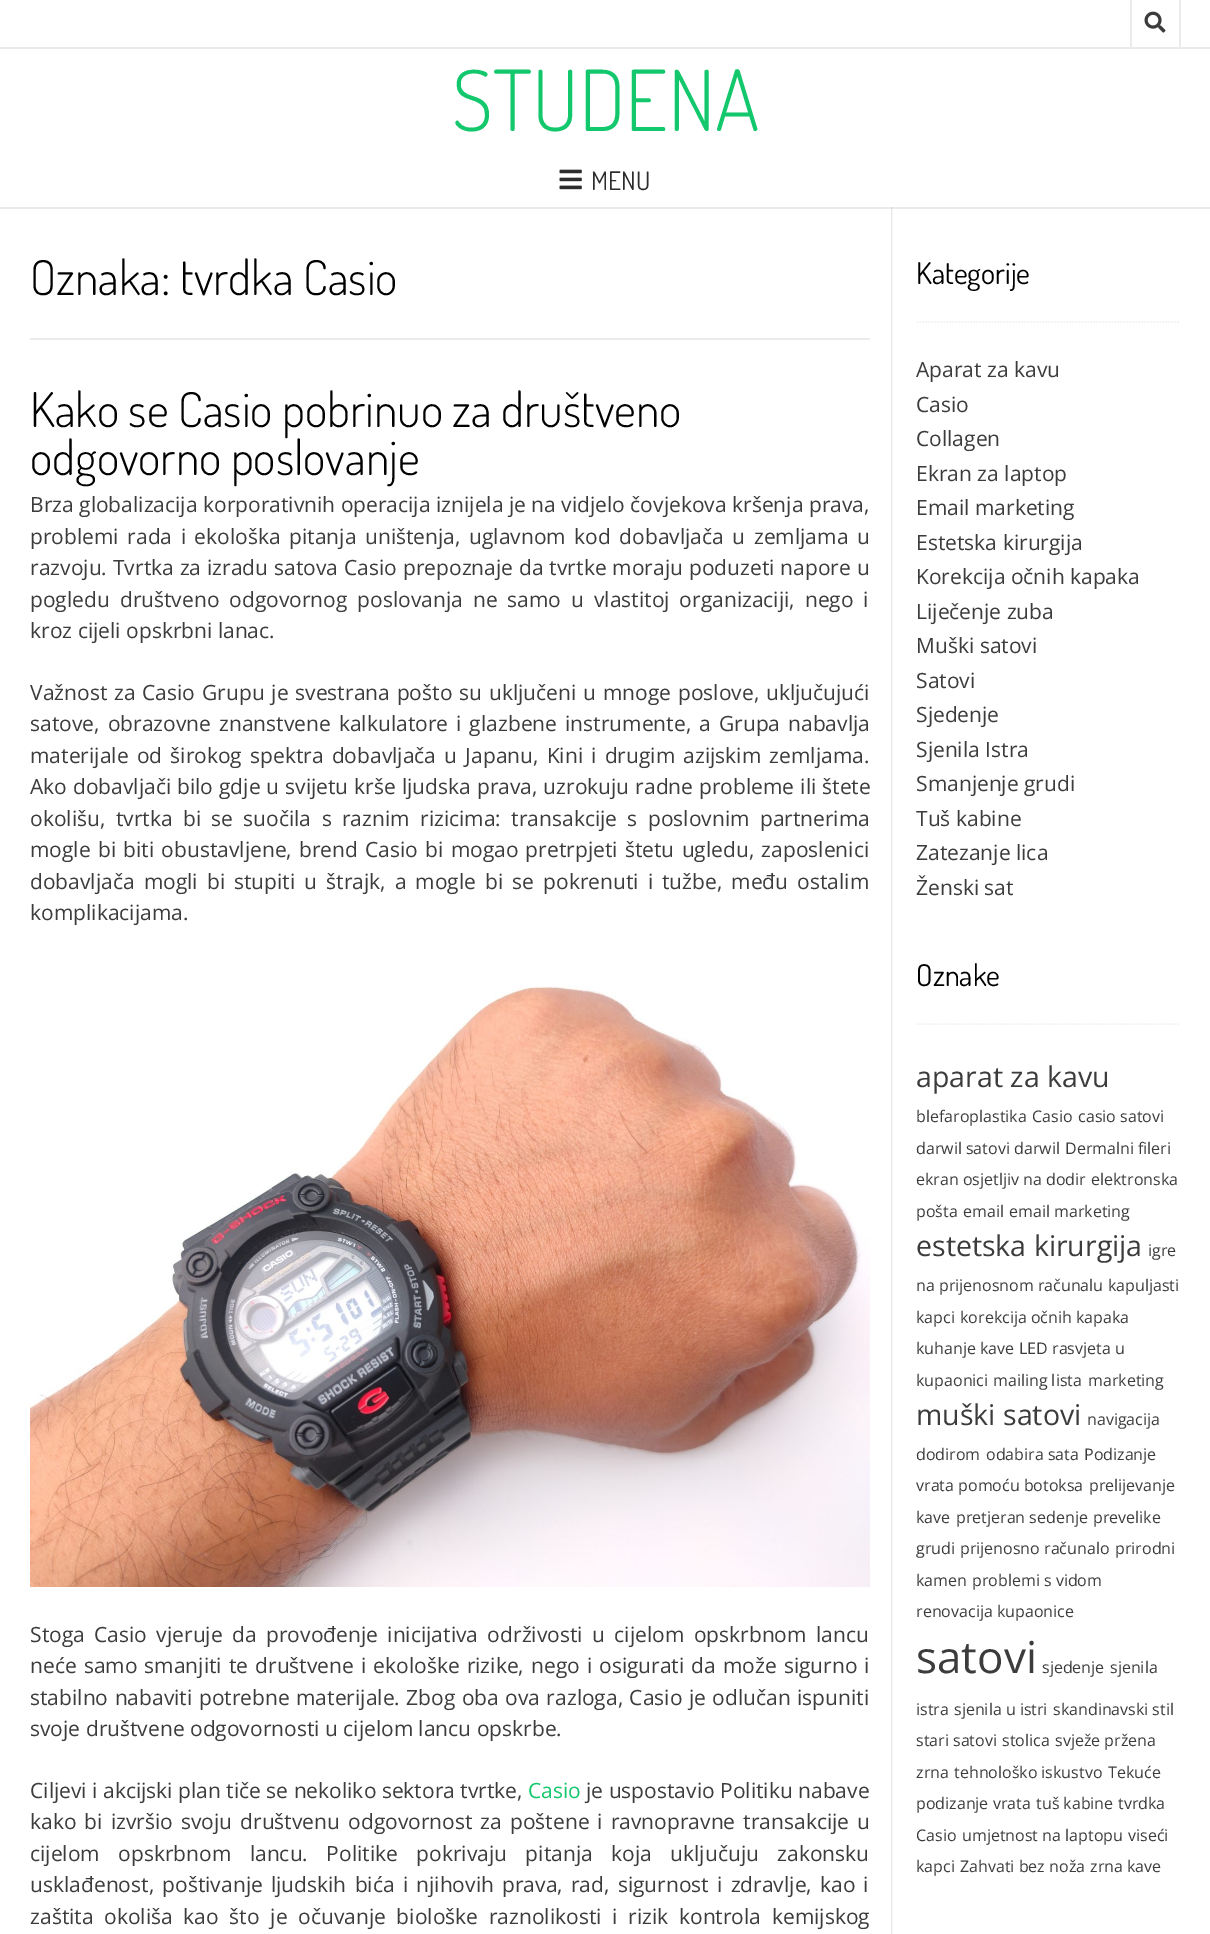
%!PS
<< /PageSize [1210 1934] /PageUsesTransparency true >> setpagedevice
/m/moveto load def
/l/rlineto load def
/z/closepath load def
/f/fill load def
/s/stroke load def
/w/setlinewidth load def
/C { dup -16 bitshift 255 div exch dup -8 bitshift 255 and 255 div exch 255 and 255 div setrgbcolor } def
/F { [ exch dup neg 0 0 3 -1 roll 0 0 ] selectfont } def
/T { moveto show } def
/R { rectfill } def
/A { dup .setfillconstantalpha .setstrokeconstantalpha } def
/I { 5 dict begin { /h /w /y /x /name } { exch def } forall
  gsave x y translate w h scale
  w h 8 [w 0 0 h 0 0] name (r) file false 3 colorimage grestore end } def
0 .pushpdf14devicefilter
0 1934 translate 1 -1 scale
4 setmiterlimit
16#FFFFFF C
0 0 1210 1934 R
16#EBEBEB C
0 47 1210 2 R
1179 0 2 47 R
1130 0 2 47 R
(1.rgb) 1144 11 22 22 I
16#F5F5F5 C
891 207 m 0 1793 l 288 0 l -287 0 l 0 -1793 l z f
0.08 A
16#000000 C
0 207 m 0 2 l 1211 0 l 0 -159 l -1 0 l 0 157 l z f
/Dosis-Light 84 F
1 A
16#13C76D C
(STUDENA) 452 131 T
(2.rgb) 559 169 23 21 I
/Dosis-Regular 25.5 F
16#2D2D2D C
(MENU) 591 190 T
0.04 A
16#000000 C
891 207 2 1727 R
1 A
16#EBEBEB C
30 338 840 2 R
/Dosis-Light 48 F
16#000000 C
(Oznaka: tvrdka Casio) 30 295 T
(Kako se Casio pobrinuo za društveno) 30 427 T
(odgovorno poslovanje) 30 475 T
/OpenSans-Regular 21 F
16#3C3C3C C
(Brza globalizacija korporativnih operacija iznijela je na vidjelo čovjekova kršenja prava,) 30 512 T
30 544 m 3.1 0 32 (problemi rada i ekološka pitanja uništenja, uglavnom kod dobavljača u zemljama u) widthshow
30 575 m .5 0 32 (razvoju. Tvrtka za izradu satova Casio prepoznaje da tvrtke moraju poduzeti napore u) widthshow
30 607 m 4.5 0 32 (pogledu društveno odgovornog poslovanja ne samo u vlastitoj organizaciji, nego i) widthshow
(kroz cijeli opskrbni lanac.) 30 638 T
30 700 m 1.4 0 32 (Važnost za Casio Grupu je svestrana pošto su uključeni u mnoge poslove, uključujući) widthshow
30 731 m 2.6 0 32 (satove, obrazovne znanstvene kalkulatore i glazbene instrumente, a Grupa nabavlja) widthshow
30 763 m 2.75 0 32 (materijale od širokog spektra dobavljača u Japanu, Kini i drugim azijskim zemljama.) widthshow
30 794 m .5 0 32 (Ako dobavljači bilo gdje u svijetu krše ljudska prava, uzrokuju radne probleme ili štete) widthshow
30 826 m 4.9 0 32 (okolišu, tvrtka bi se suočila s raznim rizicima: transakcije s poslovnim partnerima) widthshow
30 857 m 1.75 0 32 (mogle bi biti obustavljene, brend Casio bi mogao pretrpjeti štetu ugledu, zaposlenici) widthshow
30 889 m 3.6 0 32 (dobavljača mogli bi stupiti u štrajk, a mogle bi se pokrenuti i tužbe, među ostalim) widthshow
(komplikacijama.) 30 920 T
(3.rgb) 30 986 840 601 I
30 1642 m 4 0 32 (Stoga Casio vjeruje da provođenje inicijativa održivosti u cijelom opskrbnom lancu) widthshow
30 1673 m 1.6 0 32 (neće samo smanjiti te društvene i ekološke rizike, nego i osigurati da može sigurno i) widthshow
30 1705 m 1 0 32 (stabilno nabaviti potrebne materijale. Zbog oba ova razloga, Casio je odlučan ispuniti) widthshow
(svoje društvene odgovornosti u cijelom lancu opskrbe.) 30 1736 T
(Ciljevi i akcijski plan tiče se nekoliko sektora tvrtke,) 30 1798 T
16#13C76D C
(Casio) 528 1798 T
16#3C3C3C C
(je uspostavio Politiku nabave) 586 1798 T
30 1829 m 2.6 0 32 (kako bi izvršio svoju društvenu odgovornost za poštene i ravnopravne transakcije u) widthshow
30 1861 m 13 0 32 (cijelom opskrbnom lancu. Politike pokrivaju pitanja koja uključuju zakonsku) widthshow
30 1892 m 2.75 0 32 (usklađenost, poštivanje ljudskih bića i njihovih prava, rad, sigurnost i zdravlje, kao i) widthshow
30 1924 m 5.25 0 32 (zaštita okoliša kao što je očuvanje biološke raznolikosti i rizik kontrola kemijskog) widthshow
16#EFEFEF C
1.5 w
[1.5 1.5] 0 setdash
916.5 322 m 264 0 l s
/Dosis-Regular 30 F
16#000000 C
(Kategorije) 916 284 T
/OpenSans-Regular 21 F
16#3C3C3C C
(Aparat za kavu) 916 377 T
(Casio) 916 412 T
(Collagen) 916 446 T
(Ekran za laptop) 916 481 T
(Email marketing) 916 515 T
(Estetska kirurgija) 916 550 T
(Korekcija očnih kapaka) 916 584 T
(Liječenje zuba) 916 619 T
(Muški satovi) 916 653 T
(Satovi) 916 688 T
(Sjedenje) 916 722 T
(Sjenila Istra) 916 757 T
(Smanjenje grudi) 916 791 T
(Tuš kabine) 916 826 T
(Zatezanje lica) 916 860 T
(Ženski sat) 916 895 T
16#EFEFEF C
916.5 1024 m 264 0 l s
/Dosis-Regular 30 F
16#000000 C
(Oznake) 916 986 T
/OpenSans-Regular 28.5 F
16#3C3C3C C
(aparat za kavu) 916 1087 T
/OpenSans-Regular 16 F
(blefaroplastika) 916 1122 T
(Casio) 1032 1122 T
(casio satovi) 1078 1122 T
(darwil satovi darwil) 916 1154 T
(Dermalni fileri) 1065 1154 T
(ekran osjetljiv na dodir) 916 1185 T
(elektronska) 1091 1185 T
(pošta) 916 1217 T
(email) 963 1217 T
(email marketing) 1009 1217 T
/OpenSans-Regular 28.5 F
(estetska kirurgija) 916 1256 T
/OpenSans-Regular 16 F
(igre) 1148 1256 T
(na prijenosnom računalu) 916 1291 T
(kapuljasti) 1108 1291 T
(kapci) 916 1323 T
(korekcija očnih kapaka) 960 1323 T
(kuhanje kave) 916 1354 T
(LED rasvjeta u) 1019 1354 T
(kupaonici) 916 1386 T
(mailing lista) 993 1386 T
(marketing) 1088 1386 T
/OpenSans-Regular 28.5 F
(muški satovi) 916 1425 T
/OpenSans-Regular 16 F
(navigacija) 1087 1425 T
(dodirom) 916 1460 T
(odabira sata) 986 1460 T
(Podizanje) 1084 1460 T
(vrata pomoću botoksa) 916 1491 T
(prelijevanje) 1089 1491 T
(kave) 916 1523 T
(pretjeran sedenje) 956 1523 T
(prevelike) 1093 1523 T
(grudi) 916 1554 T
(prijenosno računalo) 960 1554 T
(prirodni) 1115 1554 T
(kamen) 916 1586 T
(problemi s vidom) 972 1586 T
(renovacija kupaonice) 916 1617 T
/OpenSans-Regular 44 F
(satovi) 916 1673 T
/OpenSans-Regular 16 F
(sjedenje) 1042 1673 T
(sjenila) 1110 1673 T
(istra) 916 1715 T
(sjenila u istri) 954 1715 T
(skandinavski stil) 1053 1715 T
(stari satovi) 916 1746 T
(stolica) 1002 1746 T
(svježe pržena) 1055 1746 T
(zrna) 916 1778 T
(tehnološko iskustvo) 954 1778 T
(Tekuće) 1108 1778 T
(podizanje vrata) 916 1809 T
(tuš kabine) 1036 1809 T
(tvrdka) 1118 1809 T
(Casio) 916 1841 T
(umjetnost na laptopu) 962 1841 T
(viseći) 1128 1841 T
(kapci) 916 1872 T
(Zahvati bez noža) 960 1872 T
(zrna kave) 1090 1872 T
.poppdf14devicefilter showpage
